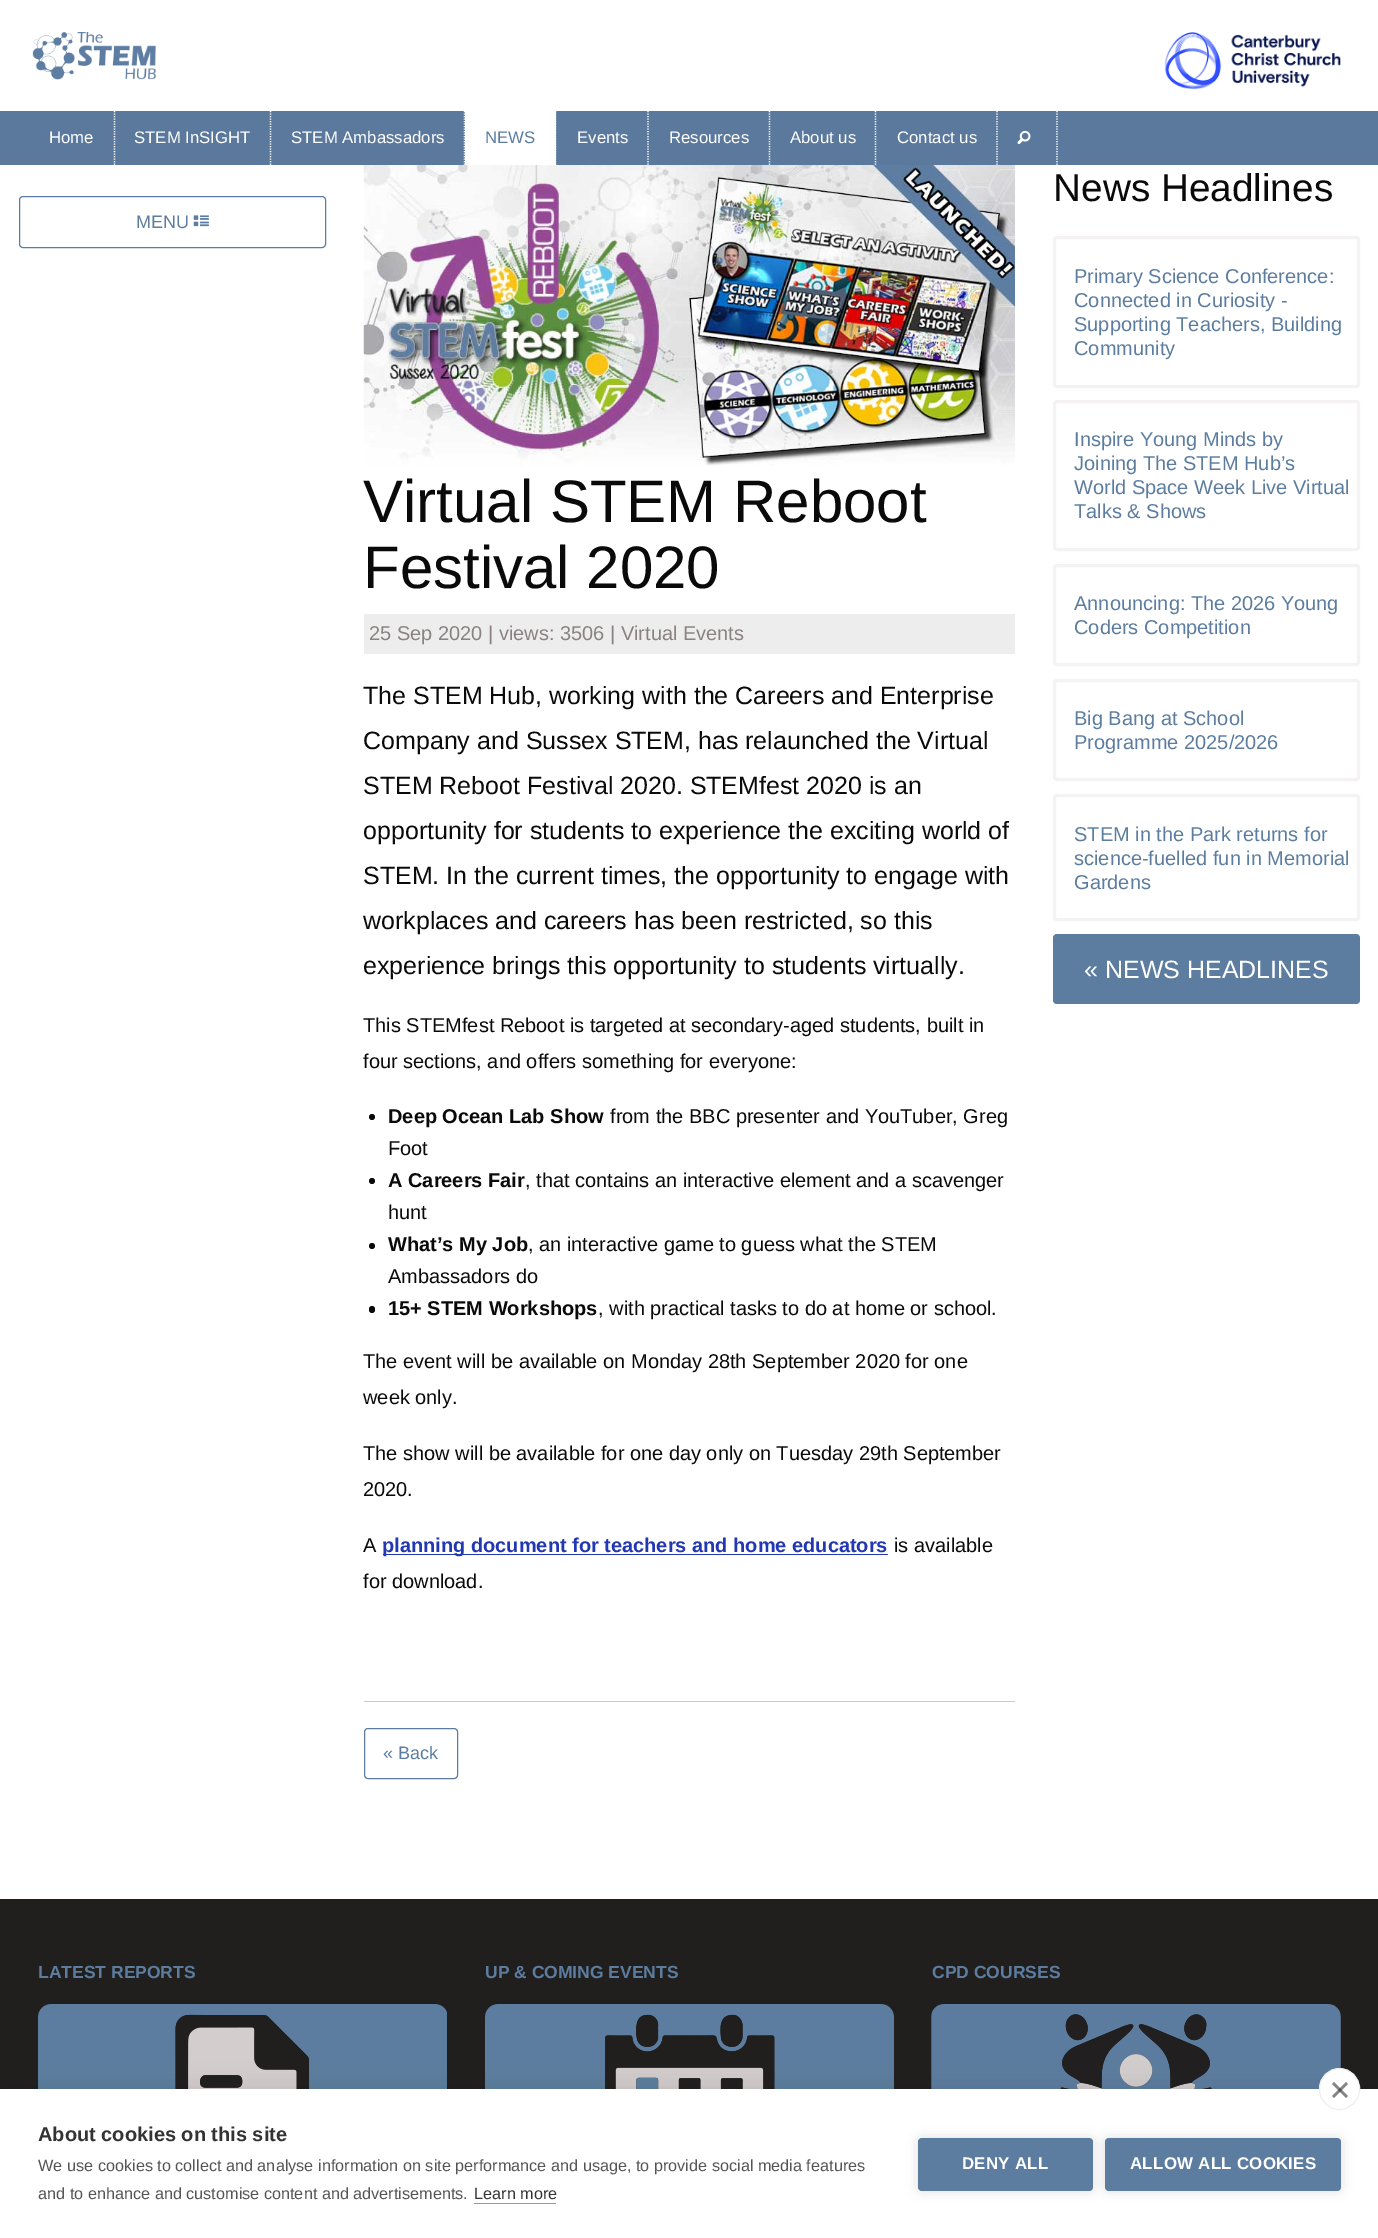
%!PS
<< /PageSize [1378 2238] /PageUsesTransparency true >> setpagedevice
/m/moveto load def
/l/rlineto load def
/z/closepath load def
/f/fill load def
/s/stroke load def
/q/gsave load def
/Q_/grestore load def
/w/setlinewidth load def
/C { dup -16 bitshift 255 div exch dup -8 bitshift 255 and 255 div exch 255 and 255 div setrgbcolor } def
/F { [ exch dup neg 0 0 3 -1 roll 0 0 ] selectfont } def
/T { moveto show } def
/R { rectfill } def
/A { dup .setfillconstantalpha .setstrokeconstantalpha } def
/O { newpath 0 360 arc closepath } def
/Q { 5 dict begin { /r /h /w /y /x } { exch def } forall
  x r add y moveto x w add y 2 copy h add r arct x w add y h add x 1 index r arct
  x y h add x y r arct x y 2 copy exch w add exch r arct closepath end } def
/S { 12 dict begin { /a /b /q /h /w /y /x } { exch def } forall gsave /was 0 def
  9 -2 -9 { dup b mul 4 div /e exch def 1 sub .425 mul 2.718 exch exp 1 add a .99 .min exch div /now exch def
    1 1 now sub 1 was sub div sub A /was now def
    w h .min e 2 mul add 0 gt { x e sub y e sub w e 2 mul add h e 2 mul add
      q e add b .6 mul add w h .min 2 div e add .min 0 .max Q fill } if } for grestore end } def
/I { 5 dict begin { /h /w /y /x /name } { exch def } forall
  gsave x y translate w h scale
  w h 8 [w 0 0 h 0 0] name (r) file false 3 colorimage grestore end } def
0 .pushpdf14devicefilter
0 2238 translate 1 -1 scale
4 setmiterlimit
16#FFFFFF C
0 0 1378 2238 R
(1.rgb) 32 32 125 48 I
(2.rgb) 1164 32 177 58 I
16#5B799D C
0 111 1378 54 R
16#FFFFFF C
1.2 w
[1.25 1.25] 0 setdash
114.5 111 m 0 54 l s
/LiberationSans-Regular 16.75 F
(Home) 49 143 T
270.5 111 m 0 54 l s
(STEM InSIGHT) 134 143 T
464.5 111 m 0 54 l s
(STEM Ambassadors) 291 143 T
465 111 91 54 R
555.5 111 m 0 54 l s
16#5C7DA0 C
(NEWS) 485 143 T
16#FFFFFF C
648 111 m 0 54 l s
(Events) 577 143 T
769.5 111 m 0 54 l s
(Resources) 669 143 T
875.5 111 m 0 54 l s
(About us) 790 143 T
997 111 m 0 54 l s
(Contact us) 897 143 T
1057 111 m 0 54 l s
(3.rgb) 1017 130 14 15 I
16#5C7DA0 C
1 w
[] 0 setdash
19.5 196.5 306 51 3.5 Q s
/LiberationSans-Regular 18 F
(MENU) 136 228 T
(4.rgb) 193 215 16 12 I
/LiberationSans-Regular 38.75 F
16#0A0A0A C
(News Headlines) 1053 201 T
16#F4F2F2 C
3 w
1054.5 237.5 304 149 2.5 Q s
/LiberationSans-Regular 20 F
16#5C7DA0 C
(Primary Science Conference:) 1074 283 T
(Connected in Curiosity -) 1074 307 T
(Supporting Teachers, Building) 1074 331 T
(Community) 1074 355 T
16#F4F2F2 C
1054.5 401.5 304 148 2.5 Q s
16#5C7DA0 C
(Inspire Young Minds by) 1074 446 T
(Joining The STEM Hub’s) 1074 470 T
(World Space Week Live Virtual) 1074 494 T
(Talks & Shows) 1074 518 T
16#F4F2F2 C
1054.5 565.5 304 99 2.5 Q s
16#5C7DA0 C
(Announcing: The 2026 Young) 1074 610 T
(Coders Competition) 1074 634 T
16#F4F2F2 C
1054.5 680.5 304 99 2.5 Q s
16#5C7DA0 C
(Big Bang at School) 1074 725 T
(Programme 2025/2026) 1074 749 T
16#F4F2F2 C
1054.5 795.5 304 124 2.5 Q s
16#5C7DA0 C
(STEM in the Park returns for) 1074 841 T
(science-fuelled fun in Memorial) 1074 865 T
(Gardens) 1074 889 T
1053 934 307 70 4 Q f
/LiberationSans-Regular 25 F
16#FFFFFF C
(« NEWS HEADLINES) 1084 978 T
(5.rgb) 363 165 652 301 I
/LiberationSans-Regular 60 F
16#0A0A0A C
(Virtual STEM Reboot) 363 522 T
(Festival 2020) 363 588 T
16#EDEDED C
364 614 651 40 R
/LiberationSans-Regular 20 F
16#8A8282 C
(25 Sep 2020 | views: 3506 | Virtual Events) 369 640 T
/LiberationSans-Regular 25 F
16#0A0A0A C
(The STEM Hub, working with the Careers and Enterprise) 363 704 T
(Company and Sussex STEM, has relaunched the Virtual) 363 749 T
(STEM Reboot Festival 2020. STEMfest 2020 is an) 363 794 T
(opportunity for students to experience the exciting world of) 363 839 T
(STEM. In the current times, the opportunity to engage with) 363 884 T
(workplaces and careers has been restricted, so this) 363 929 T
(experience brings this opportunity to students virtually.) 363 974 T
/LiberationSans-Regular 20 F
(This STEMfest Reboot is targeted at secondary-aged students, built in) 363 1032 T
(four sections, and offers something for everyone:) 363 1068 T
372 1117 3 O f
/LiberationSans-Bold 20 F
(Deep Ocean Lab Show) 388 1123 T
/LiberationSans-Regular 20 F
(from the BBC presenter and YouTuber, Greg) 610 1123 T
(Foot) 388 1155 T
372 1181 3 O f
/LiberationSans-Bold 20 F
(A Careers Fair) 388 1187 T
/LiberationSans-Regular 20 F
(, that contains an interactive element and a scavenger) 525 1187 T
(hunt) 388 1219 T
372 1246 3 O f
/LiberationSans-Bold 20 F
(What’s My Job) 388 1251 T
/LiberationSans-Regular 20 F
(, an interactive game to guess what the STEM) 528 1251 T
(Ambassadors do) 388 1283 T
369 1306 6 7 3 Q f
/LiberationSans-Bold 20 F
(15+ STEM Workshops) 388 1315 T
/LiberationSans-Regular 20 F
(, with practical tasks to do at home or school.) 598 1315 T
(The event will be available on Monday 28th September 2020 for one) 363 1368 T
(week only.) 363 1404 T
(The show will be available for one day only on Tuesday 29th September) 363 1460 T
(2020.) 363 1496 T
(A) 363 1552 T
16#2237B2 C
383 1554 505 1 R
/LiberationSans-Bold 20 F
(planning document for teachers and home educators) 382 1552 T
/LiberationSans-Regular 20 F
16#0A0A0A C
(is available) 894 1552 T
(for download.) 363 1588 T
16#CACACA C
364 1701 651 1 R
16#5C7DA0 C
1 w
364.5 1728.5 93 50 3.5 Q s
/LiberationSans-Regular 18 F
(« Back) 383 1759 T
16#211E1E C
0 1899 1378 190 R
/LiberationSans-Bold 17.5 F
16#5C7DA0 C
(LATEST REPORTS) 38 1978 T
(6.rgb) 38 2004 409 85 I
(UP & COMING EVENTS) 485 1978 T
(7.rgb) 485 2004 409 85 I
(CPD COURSES) 932 1978 T
(8.rgb) 931 2004 410 85 I
16#000000 C
0 2089 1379 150 0 12.5 .1 S
16#FFFFFF C
0 2089 1378 149 R
1319.5 2068.5 40 41 20 Q q f Q_
16#EEEEEE C
s
16#858585 C
1332 2096 m 14 -14 l 2 2 l -14 14 l z f
0.6 A
16#333333 C
1334 2082 m 14 14 l -2 2 l -14 -14 l z f
/LiberationSans-Bold 20 F
1 A
(About cookies on this site) 38 2141 T
/LiberationSans-Regular 16.25 F
16#555555 C
(We use cookies to collect and analyse information on site performance and usage, to provide social media features) 38 2171 T
(and to enhance and customise content and advertisements.) 38 2199 T
16#333333 C
(Learn more) 474 2199 T
16#999999 C
474 2203 82 1 R
16#000000 C
918 2138 175 53 4 6 .12 S
16#5C7DA0 C
918 2138 175 53 4 Q f
/LiberationSans-Bold 16.9 F
16#FFFFFF C
962 2169 m .25 0 (DENY ALL) ashow
16#000000 C
1105 2138 236 53 4 6 .12 S
16#5C7DA0 C
1105 2138 236 53 4 Q f
16#FFFFFF C
1130 2169 m .25 0 (ALLOW ALL COOKIES) ashow
.poppdf14devicefilter showpage
